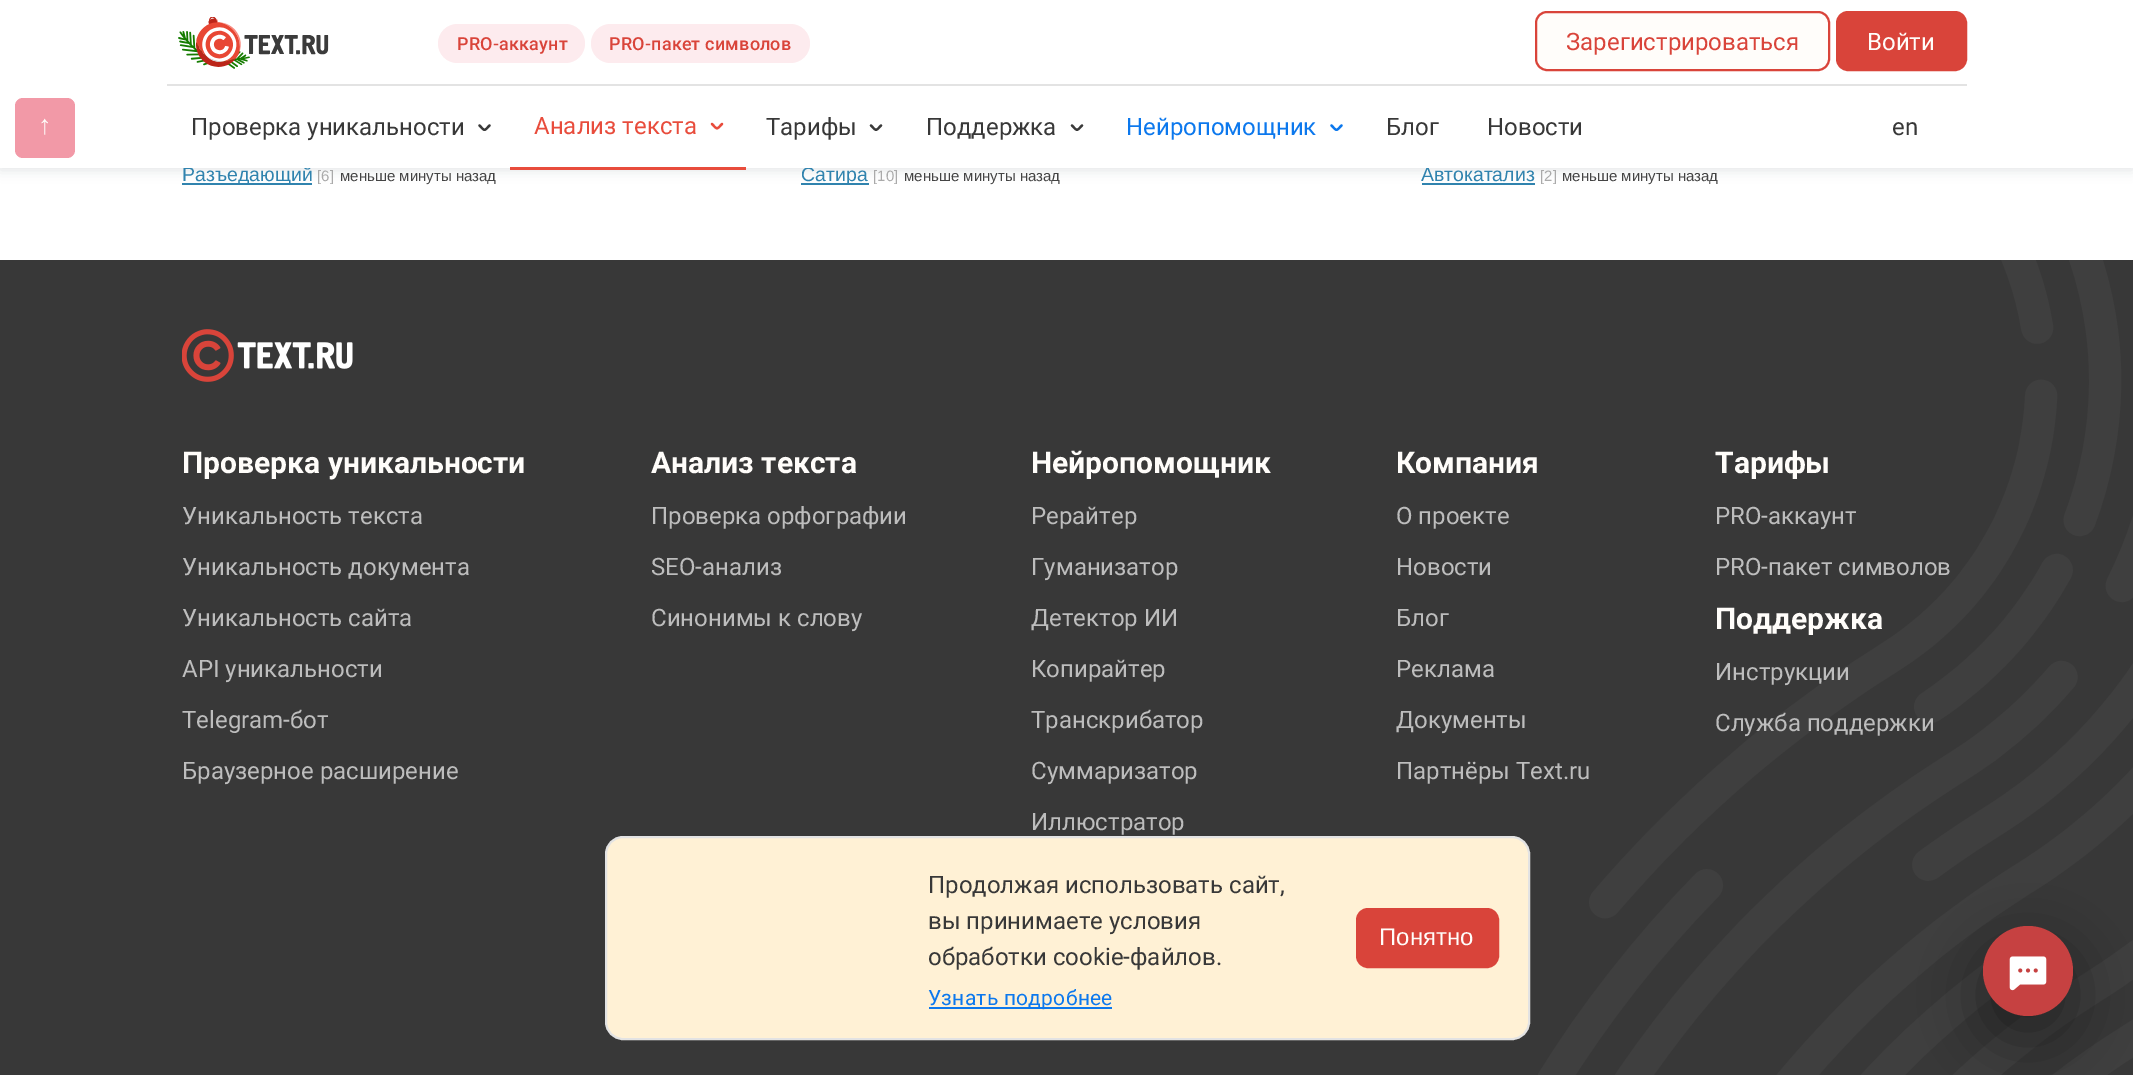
%!PS
<< /PageSize [2133 1075] /PageUsesTransparency true >> setpagedevice
/m/moveto load def
/c/rcurveto load def
/f/fill load def
/s/stroke load def
/q/gsave load def
/Q_/grestore load def
/w/setlinewidth load def
/C { dup -16 bitshift 255 div exch dup -8 bitshift 255 and 255 div exch 255 and 255 div setrgbcolor } def
/F { [ exch dup neg 0 0 3 -1 roll 0 0 ] selectfont } def
/T { moveto show } def
/R { rectfill } def
/A { dup .setfillconstantalpha .setstrokeconstantalpha } def
/O { newpath 0 360 arc closepath } def
/Q { 5 dict begin { /r /h /w /y /x } { exch def } forall
  x r add y moveto x w add y 2 copy h add r arct x w add y h add x 1 index r arct
  x y h add x y r arct x y 2 copy exch w add exch r arct closepath end } def
/S { 12 dict begin { /a /b /q /h /w /y /x } { exch def } forall gsave /was 0 def
  9 -2 -9 { dup b mul 4 div /e exch def 1 sub .425 mul 2.718 exch exp 1 add a .99 .min exch div /now exch def
    1 1 now sub 1 was sub div sub A /was now def
    w h .min e 2 mul add 0 gt { x e sub y e sub w e 2 mul add h e 2 mul add
      q e add b .6 mul add w h .min 2 div e add .min 0 .max Q fill } if } for grestore end } def
/I { 5 dict begin { /h /w /y /x /name } { exch def } forall
  gsave x y translate w h scale
  w h 8 [w 0 0 h 0 0] name (r) file false 3 colorimage grestore end } def
0 .pushpdf14devicefilter
0 1075 translate 1 -1 scale
4 setmiterlimit
16#FFFFFF C
0 0 2133 1075 R
16#3083AE C
182 183 130 2 R
801 183 68 2 R
1422 183 113 2 R
16#162C46 C
0 2 2133 168 0 6 .14 S
/LiberationSans-Regular 19.5 F
16#3083AE C
(Разъедающий) 182 181 T
(Сатира) 801 181 T
(Автокатализ) 1421 181 T
16#FFFFFF C
0 0 2133 168 R
(1.rgb) 178 17 151 52 I
16#FDEBEE C
438 24 147 39 19.5 Q f
/Roboto-Medium 18 F
16#D9443A C
457 50 m .2 0 (PRO-аккаунт) ashow
16#FDEBEE C
591 24 219 39 19.5 Q f
16#D9443A C
609 50 m .2 0 (PRO-пакет символов) ashow
16#FFFDFA C
1536 12 293 58 11 Q q f Q_
16#D9443A C
2 w
s
/Roboto-Regular 24 F
(Зарегистрироваться) 1566 50 T
1837 12 129 58 11 Q q f Q_
s
16#FFFDFA C
(Войти) 1867 50 T
16#E3E3E3 C
167 84 1800 2 R
16#3A3A3A C
2.2 w
1 setlinecap
1 setlinejoin
489.5 125.5 m -6 6 -4 6 -10 0 c s
16#383838 C
(Проверка уникальности) 191 135 T
16#E84C3C C
722 124 m -6 6 -4 6 -10 0 c s
(Анализ текста) 534 134 T
510 167 236 3 R
16#3A3A3A C
881 125.5 m -6 6 -4 6 -10 0 c s
16#383838 C
(Тарифы) 766 135 T
16#3A3A3A C
1082 125.5 m -6 6 -4 6 -10 0 c s
16#383838 C
(Поддержка) 926 135 T
16#0C78ED C
1341.5 125.5 m -6 6 -4 6 -10 0 c s
(Нейропомощник) 1126 135 T
16#383838 C
(Блог) 1386 135 T
(Новости) 1487 135 T
(en) 1892 135 T
16#F299A7 C
15 98 60 60 8 Q f
/LiberationSans-Bold 27 F
16#FFFDFA C
(↑) 38 134 T
/LiberationSans-Regular 15 F
16#AAAAAA C
([6]) 317 181 T
16#444444 C
(меньше минуты назад) 340 181 T
16#AAAAAA C
([10]) 873 181 T
16#444444 C
(меньше минуты назад) 904 181 T
16#AAAAAA C
([2]) 1540 181 T
16#444444 C
(меньше минуты назад) 1562 181 T
16#383838 C
0 260 2133 815 R
(2.rgb) 1538 260 595 815 I
(3.rgb) 182 329 171 53 I
/Roboto-Bold 30 F
16#FFFDFA C
(Проверка уникальности) 182 473 T
/Roboto-Regular 24 F
16#BDBDBD C
(Уникальность текста) 182 524 T
(Уникальность документа) 182 575 T
(Уникальность сайта) 182 626 T
(API уникальности) 182 677 T
(Telegram-бот) 182 728 T
(Браузерное расширение) 182 779 T
/Roboto-Bold 30 F
16#FFFDFA C
(Анализ текста) 651 473 T
/Roboto-Regular 24 F
16#BDBDBD C
(Проверка орфографии) 651 524 T
(SEO-анализ) 651 575 T
(Синонимы к слову) 651 626 T
/Roboto-Bold 30 F
16#FFFDFA C
(Нейропомощник) 1031 473 T
/Roboto-Regular 24 F
16#BDBDBD C
(Рерайтер) 1031 524 T
(Гуманизатор) 1031 575 T
(Детектор ИИ) 1031 626 T
(Копирайтер) 1031 677 T
(Транскрибатор) 1031 728 T
(Суммаризатор) 1031 779 T
(Иллюстратор) 1031 830 T
/Roboto-Bold 30 F
16#FFFDFA C
(Компания) 1396 473 T
/Roboto-Regular 24 F
16#BDBDBD C
(О проекте) 1396 524 T
(Новости) 1396 575 T
(Блог) 1396 626 T
(Реклама) 1396 677 T
(Документы) 1396 728 T
(Партнёры Text.ru) 1396 779 T
/Roboto-Bold 30 F
16#FFFDFA C
(Тарифы) 1715 473 T
/Roboto-Regular 24 F
16#BDBDBD C
(PRO-аккаунт) 1715 524 T
(PRO-пакет символов) 1715 575 T
/Roboto-Bold 30 F
16#FFFDFA C
(Поддержка) 1715 629 T
/Roboto-Regular 24 F
16#BDBDBD C
(Инструкции) 1715 680 T
(Служба поддержки) 1715 731 T
16#FFF1D5 C
606 837 923 202 17 Q q f Q_
16#E3E3E3 C
2 w
0 setlinecap
0 setlinejoin
s
16#383838 C
(Продолжая использовать сайт,) 928 893 T
(вы принимаете условия) 928 929 T
(обработки cookie-файлов.) 928 965 T
16#0C78ED C
929 1007 183 2 R
/Roboto-Regular 21 F
928 1005 m .25 0 (Узнать подробнее) ashow
16#D9443A C
1357 909 141 58 11 Q q f Q_
s
/LiberationSans-Regular 24 F
16#FFFDFA C
(Понятно) 1379 945 T
16#000000 C
1983 950 90 90 45 30 .4 S
16#C64141 C
2028 971 45 O f
(4.rgb) 2009 956 38 35 I
.poppdf14devicefilter showpage
